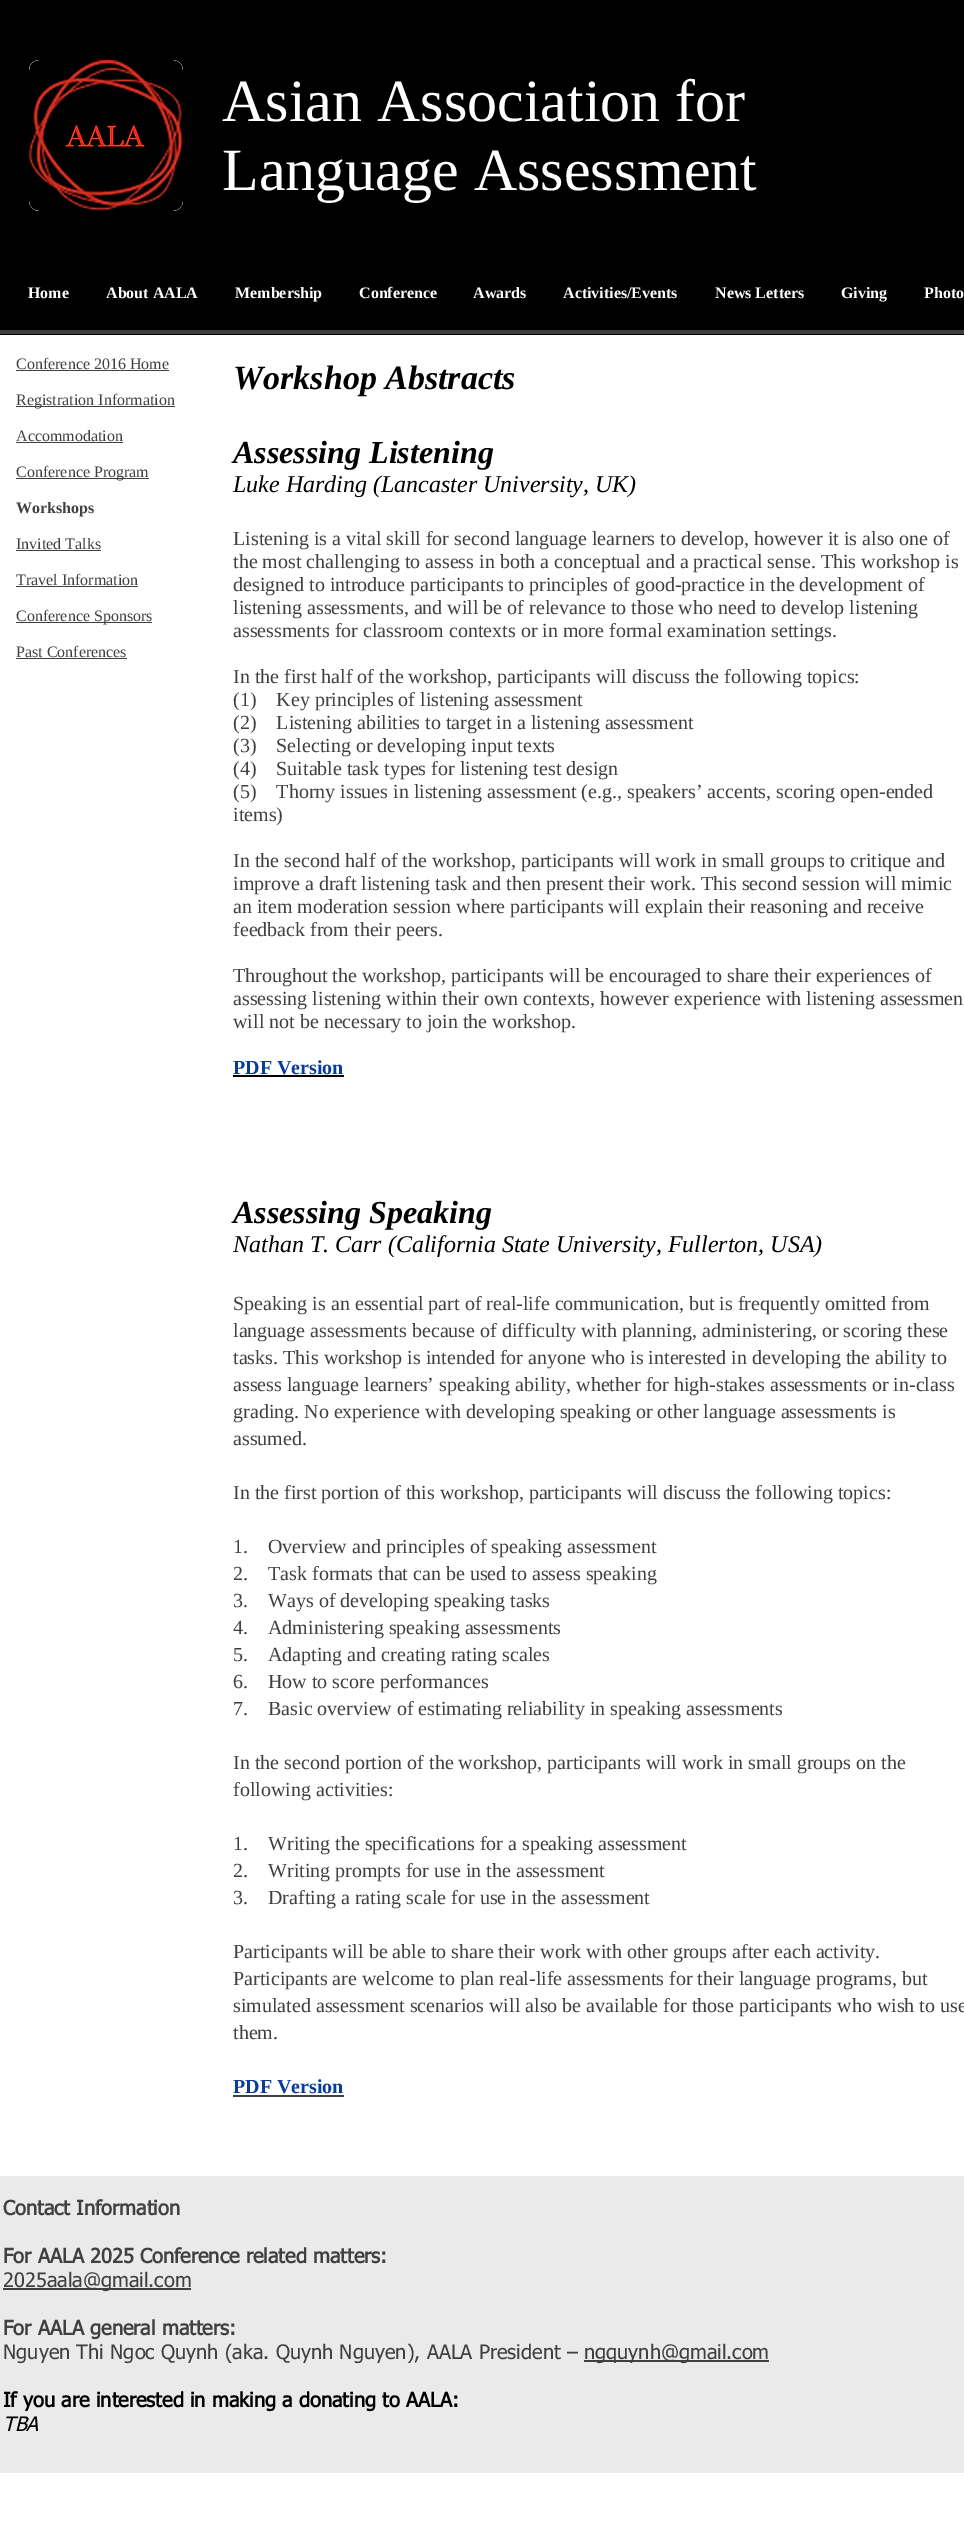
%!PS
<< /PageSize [964 2537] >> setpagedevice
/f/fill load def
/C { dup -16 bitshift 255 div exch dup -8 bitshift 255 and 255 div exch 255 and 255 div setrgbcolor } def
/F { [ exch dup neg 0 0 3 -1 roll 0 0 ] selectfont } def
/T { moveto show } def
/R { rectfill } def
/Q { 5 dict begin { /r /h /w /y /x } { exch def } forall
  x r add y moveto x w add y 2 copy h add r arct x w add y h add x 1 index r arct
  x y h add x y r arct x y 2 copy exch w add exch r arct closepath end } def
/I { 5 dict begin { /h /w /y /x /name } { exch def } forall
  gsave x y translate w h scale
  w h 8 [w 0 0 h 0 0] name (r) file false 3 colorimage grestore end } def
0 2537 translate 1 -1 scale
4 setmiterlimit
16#FFFFFF C
0 0 964 2537 R
16#000000 C
0 0 964 330 R
16#FFFFFF C
29 60 154 151 10 Q f
(1.rgb) 29 60 154 151 I
/LiberationSerif-Regular 60 F
(Asian Association for) 222 121 T
(Language Assessment) 222 190 T
/LiberationSerif-Bold 16 F
(Home) 28 298 T
(About AALA) 106 298 T
(Membership) 235 298 T
(Conference) 359 298 T
(Awards) 473 298 T
(Activities/Events) 563 298 T
(News Letters) 715 298 T
(Giving) 841 298 T
(Photo) 924 298 T
16#404040 C
0 330 964 4 R
16#000000 C
0 334 964 1 R
/LiberationSerif-Regular 16 F
16#404040 C
(Conference 2016 Home) 16 369 T
16 370 153 1 R
16 406 159 1 R
(Registration Information) 16 405 T
(Accommodation) 16 441 T
16 442 107 1 R
16 478 133 1 R
(Conference Program) 16 477 T
/LiberationSerif-Bold 16 F
(Workshops) 16 513 T
/LiberationSerif-Regular 16 F
(Invited Talks) 16 549 T
16 550 85 1 R
(Travel Information) 16 585 T
16 586 122 1 R
16 622 136 1 R
(Conference Sponsors) 16 621 T
(Past Conferences) 16 657 T
16 658 111 1 R
/LiberationSerif-BoldItalic 34 F
16#000000 C
(Workshop Abstracts) 233 389 T
/LiberationSerif-BoldItalic 32 F
(Assessing Listening) 233 463 T
/LiberationSerif-Italic 24 F
(Luke Harding \(Lancaster University, UK\)) 233 492 T
/LiberationSerif-Regular 20 F
16#404040 C
(Listening is a vital skill for second language learners to develop, however it is also one of) 233 545 T
(the most challenging to assess in both a conceptual and a practical sense. This workshop is) 233 568 T
(designed to introduce participants to principles of good-practice in the development of) 233 591 T
(listening assessments, and will be of relevance to those who need to develop listening) 233 614 T
(assessments for classroom contexts or in more formal examination settings.) 233 637 T
(In the first half of the workshop, participants will discuss the following topics:) 233 683 T
(\(1\)    Key principles of listening assessment) 233 706 T
(\(2\)    Listening abilities to target in a listening assessment) 233 729 T
(\(3\)    Selecting or developing input texts) 233 752 T
(\(4\)    Suitable task types for listening test design) 233 775 T
(\(5\)    Thorny issues in listening assessment \(e.g., speakers’ accents, scoring open-ended) 233 798 T
(items\)) 233 821 T
(In the second half of the workshop, participants will work in small groups to critique and) 233 867 T
(improve a draft listening task and then present their work. This second session will mimic) 233 890 T
(an item moderation session where participants will explain their reasoning and receive) 233 913 T
(feedback from their peers.) 233 936 T
(Throughout the workshop, participants will be encouraged to share their experiences of) 233 982 T
(assessing listening within their own contexts, however experience with listening assessmen) 233 1005 T
(will not be necessary to join the workshop.) 233 1028 T
/LiberationSerif-Bold 20 F
16#093B99 C
(PDF Version) 233 1074 T
16#000000 C
233 1075 111 2 R
/LiberationSerif-BoldItalic 32 F
(Assessing Speaking) 233 1223 T
/LiberationSerif-Italic 24 F
(Nathan T. Carr \(California State University, Fullerton, USA\)) 233 1252 T
/LiberationSerif-Regular 20 F
16#404040 C
(Speaking is an essential part of real-life communication, but is frequently omitted from) 233 1310 T
(language assessments because of difficulty with planning, administering, or scoring these) 233 1337 T
(tasks. This workshop is intended for anyone who is interested in developing the ability to) 233 1364 T
(assess language learners’ speaking ability, whether for high-stakes assessments or in-class) 233 1391 T
(grading. No experience with developing speaking or other language assessments is) 233 1418 T
(assumed.) 233 1445 T
(In the first portion of this workshop, participants will discuss the following topics:) 233 1499 T
(1.    Overview and principles of speaking assessment) 233 1553 T
(2.    Task formats that can be used to assess speaking) 233 1580 T
(3.    Ways of developing speaking tasks) 233 1607 T
(4.    Administering speaking assessments) 233 1634 T
(5.    Adapting and creating rating scales) 233 1661 T
(6.    How to score performances) 233 1688 T
(7.    Basic overview of estimating reliability in speaking assessments) 233 1715 T
(In the second portion of the workshop, participants will work in small groups on the) 233 1769 T
(following activities:) 233 1796 T
(1.    Writing the specifications for a speaking assessment) 233 1850 T
(2.    Writing prompts for use in the assessment) 233 1877 T
(3.    Drafting a rating scale for use in the assessment) 233 1904 T
(Participants will be able to share their work with other groups after each activity.) 233 1958 T
(Participants are welcome to plan real-life assessments for their language programs, but) 233 1985 T
(simulated assessment scenarios will also be available for those participants who wish to use) 233 2012 T
(them.) 233 2039 T
/LiberationSerif-Bold 20 F
16#093B99 C
(PDF Version) 233 2093 T
16#404040 C
233 2095 111 2 R
16#EAEAEA C
0 2176 964 297 R
/tahoma-Bold 20 F
16#404040 C
(Contact Information) 3 2215 T
(For AALA 2025 Conference related matters:) 3 2263 T
3 2288 188 2 R
/tahoma-Regular 20 F
(2025aala@gmail.com) 3 2287 T
/tahoma-Bold 20 F
(For AALA general matters:) 3 2335 T
/tahoma-Regular 20 F
(Nguyen Thi Ngoc Quynh \(aka. Quynh Nguyen\), AALA President –) 3 2359 T
584 2360 185 2 R
(ngquynh@gmail.com) 584 2359 T
/tahoma-Bold 20 F
16#000000 C
(If you are interested in making a donating to AALA:) 3 2407 T
/tahoma-Italic 20 F
(TBA) 3 2431 T
showpage
